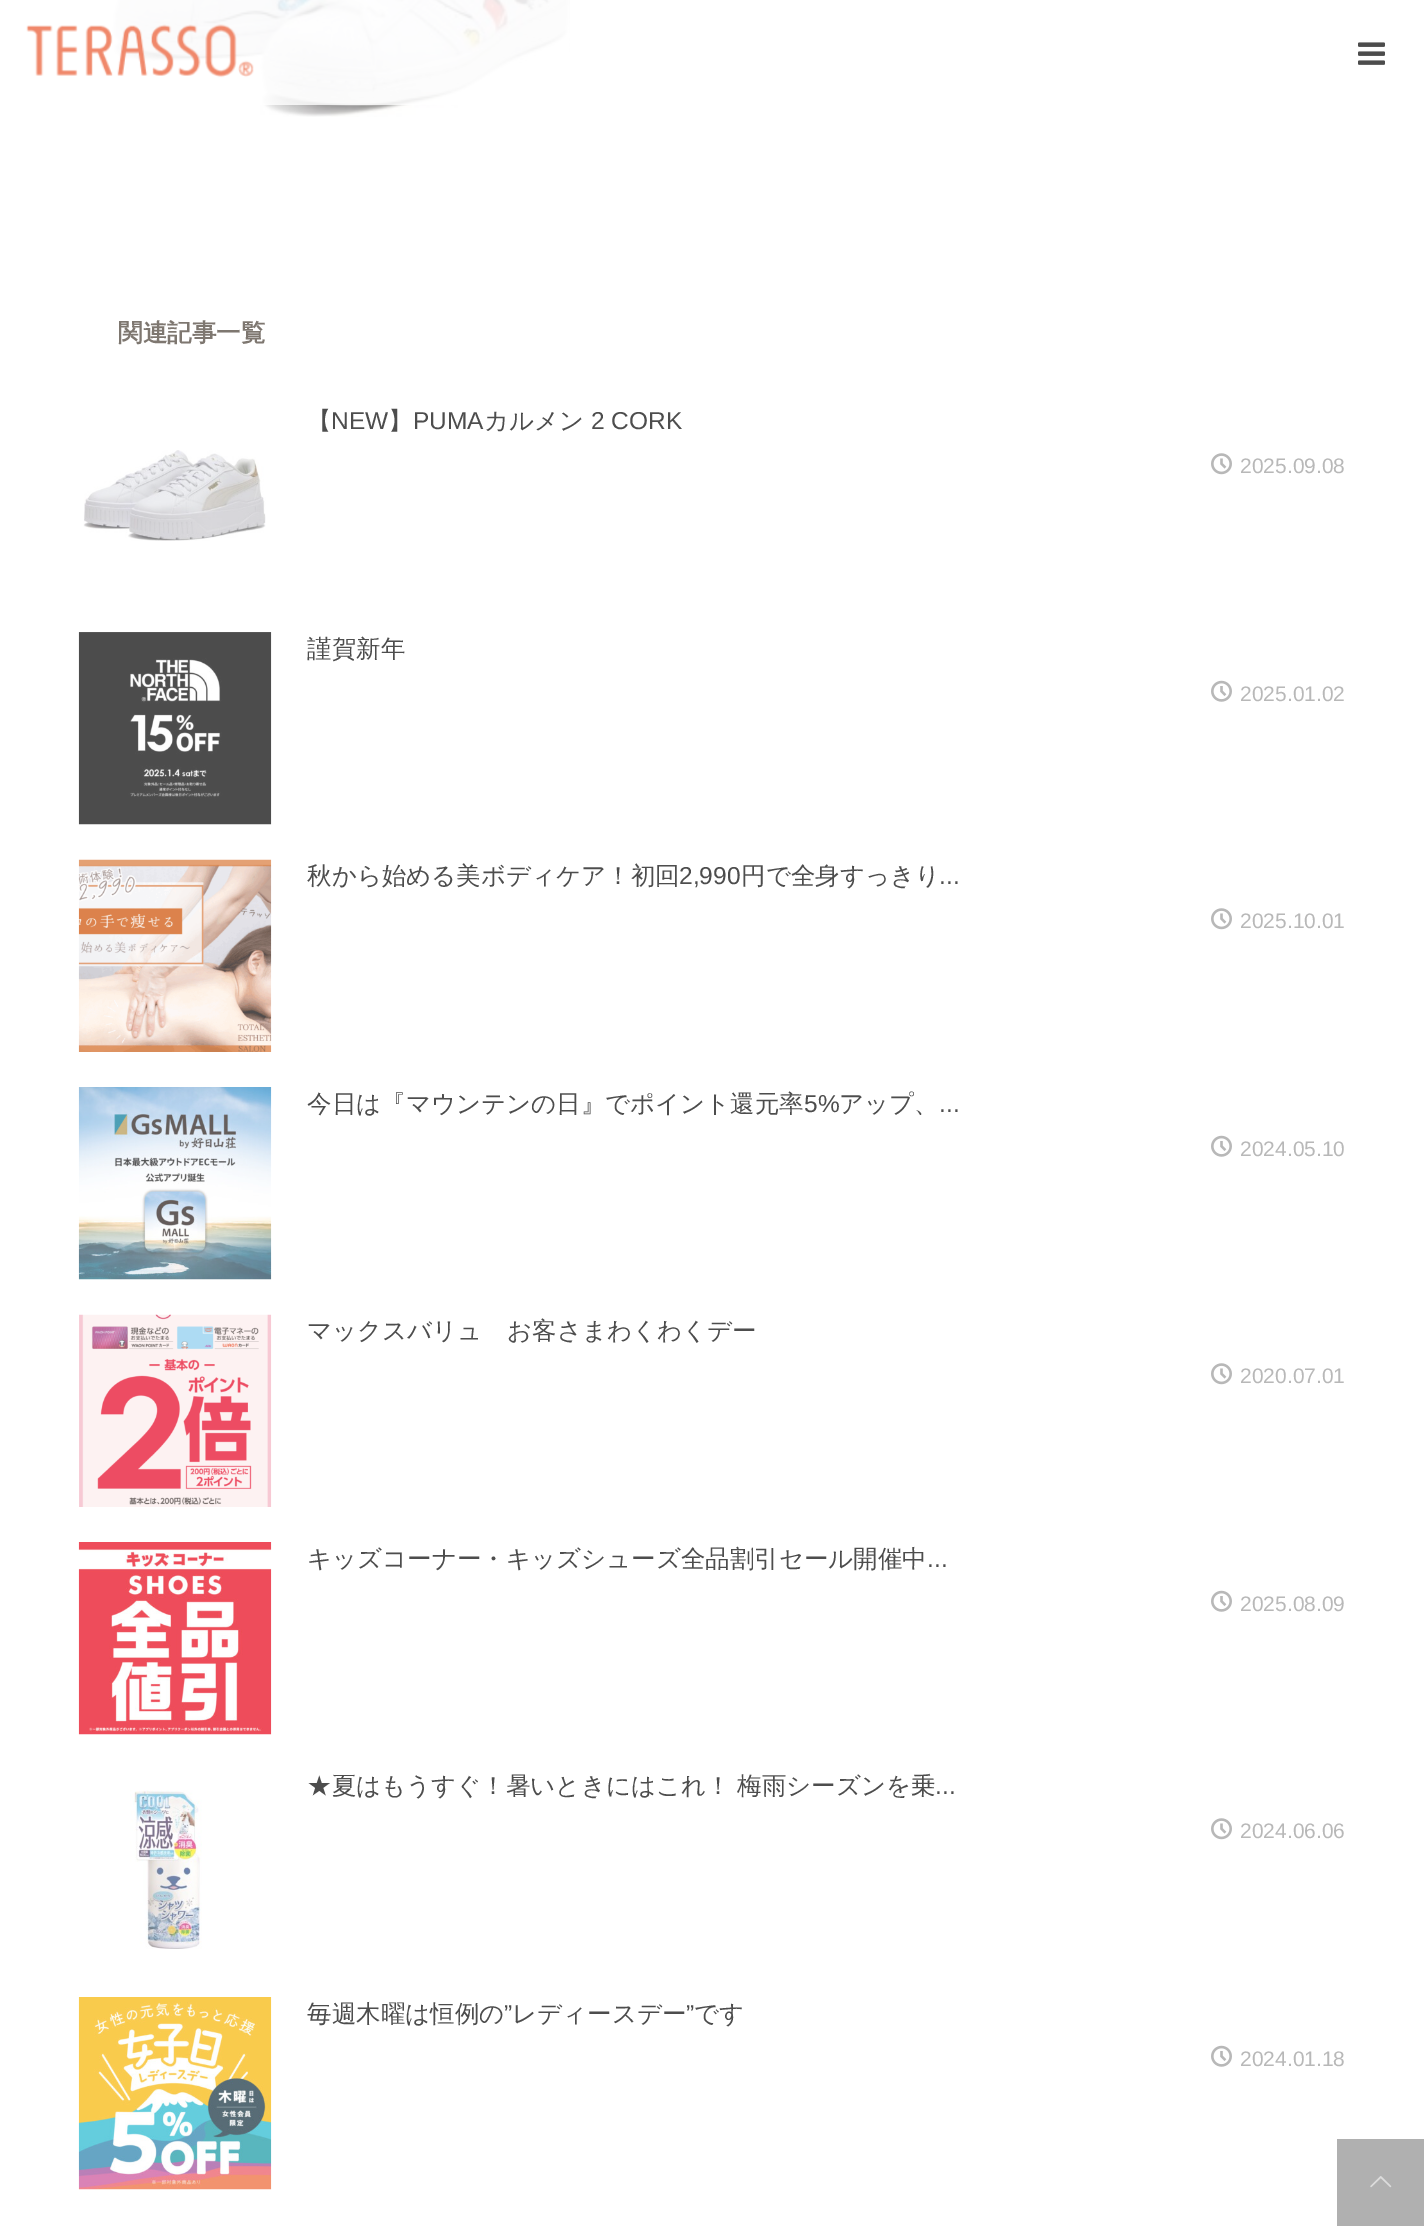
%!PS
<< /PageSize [1424 2226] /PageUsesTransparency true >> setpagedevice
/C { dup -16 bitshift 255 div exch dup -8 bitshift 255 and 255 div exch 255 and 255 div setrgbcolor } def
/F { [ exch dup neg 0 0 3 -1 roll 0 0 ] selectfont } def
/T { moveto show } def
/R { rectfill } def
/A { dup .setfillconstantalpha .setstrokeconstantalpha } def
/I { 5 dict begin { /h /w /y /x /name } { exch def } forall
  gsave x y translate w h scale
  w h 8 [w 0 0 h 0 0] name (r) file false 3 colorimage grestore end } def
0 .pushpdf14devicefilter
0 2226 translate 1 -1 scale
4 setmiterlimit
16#FFFFFF C
0 0 1424 2226 R
(3.rgb) 112 0 458 117 I
0.8 A
112 0 457 105 R
1 A
(1.rgb) 26 24 228 54 I
(2.rgb) 1358 42 27 23 I
/WenQuanYiZenHei-Bold 24.5 F
16#7E7770 C
(関連記事一覧) 118 341 T
/WenQuanYiZenHei-Medium 24.5 F
16#4D4D4D C
(【) 307 429 T
/LiberationSans-Regular 24.5 F
(NEW) 331 429 T
/WenQuanYiZenHei-Medium 24.5 F
(】) 388 429 T
/LiberationSans-Regular 24.5 F
(PUMA) 413 429 T
/WenQuanYiZenHei-Medium 24.5 F
(カルメン) 484 429 T
/LiberationSans-Regular 24.5 F
(2 CORK) 591 429 T
(4.rgb) 83 450 183 91 I
(5.rgb) 1211 453 21 22 I
/LiberationSans-Regular 21 F
16#B8B8B8 C
(2025.09.08) 1240 473 T
(6.rgb) 78 632 194 193 I
/WenQuanYiZenHei-Medium 24.5 F
16#4D4D4D C
(謹賀新年) 307 657 T
(7.rgb) 1211 680 21 22 I
/LiberationSans-Regular 21 F
16#B8B8B8 C
(2025.01.02) 1240 701 T
(8.rgb) 78 859 194 193 I
/WenQuanYiZenHei-Medium 24.5 F
16#4D4D4D C
(秋から始める美ボディケア！初回) 307 884 T
/LiberationSans-Regular 24.5 F
(2,990) 679 884 T
/WenQuanYiZenHei-Medium 24.5 F
(円で全身すっきり) 741 884 T
/LiberationSans-Regular 24.5 F
(...) 939 884 T
(5.rgb) 1211 908 21 22 I
/LiberationSans-Regular 21 F
16#B8B8B8 C
(2025.10.01) 1240 928 T
(9.rgb) 78 1087 194 193 I
/WenQuanYiZenHei-Medium 24.5 F
16#4D4D4D C
(今日は『マウンテンの日』でポイント還元率) 307 1112 T
/LiberationSans-Regular 24.5 F
(5%) 804 1112 T
/WenQuanYiZenHei-Medium 24.5 F
(アップ、) 839 1112 T
/LiberationSans-Regular 24.5 F
(...) 939 1112 T
(7.rgb) 1211 1135 21 22 I
/LiberationSans-Regular 21 F
16#B8B8B8 C
(2024.05.10) 1240 1156 T
(10.rgb) 79 1314 193 193 I
/WenQuanYiZenHei-Medium 24.5 F
16#4D4D4D C
(マックスバリュ　お客さまわくわくデー) 307 1339 T
(5.rgb) 1211 1363 21 22 I
/LiberationSans-Regular 21 F
16#B8B8B8 C
(2020.07.01) 1240 1383 T
(11.rgb) 78 1542 194 193 I
/WenQuanYiZenHei-Medium 24.5 F
16#4D4D4D C
(キッズコーナー・キッズシューズ全品割引セール開催中) 307 1567 T
/LiberationSans-Regular 24.5 F
(...) 927 1567 T
(7.rgb) 1211 1590 21 22 I
/LiberationSans-Regular 21 F
16#B8B8B8 C
(2025.08.09) 1240 1611 T
/WenQuanYiZenHei-Medium 24.5 F
16#4D4D4D C
(★夏はもうすぐ！暑いときにはこれ！) 307 1794 T
(梅雨シーズンを乗) 737 1794 T
/LiberationSans-Regular 24.5 F
(...) 935 1794 T
(12.rgb) 130 1790 72 159 I
(5.rgb) 1211 1818 21 22 I
/LiberationSans-Regular 21 F
16#B8B8B8 C
(2024.06.06) 1240 1838 T
(13.rgb) 78 1997 194 193 I
/WenQuanYiZenHei-Medium 24.5 F
16#4D4D4D C
(毎週木曜は恒例の) 307 2022 T
/LiberationSans-Regular 24.5 F
(”) 504 2022 T
/WenQuanYiZenHei-Medium 24.5 F
(レディースデー) 512 2022 T
/LiberationSans-Regular 24.5 F
(”) 686 2022 T
/WenQuanYiZenHei-Medium 24.5 F
(です) 694 2022 T
(7.rgb) 1211 2045 21 22 I
/LiberationSans-Regular 21 F
16#B8B8B8 C
(2024.01.18) 1240 2066 T
16#B0B0B0 C
1337 2139 87 87 R
(14.rgb) 1370 2176 22 12 I
.poppdf14devicefilter showpage
